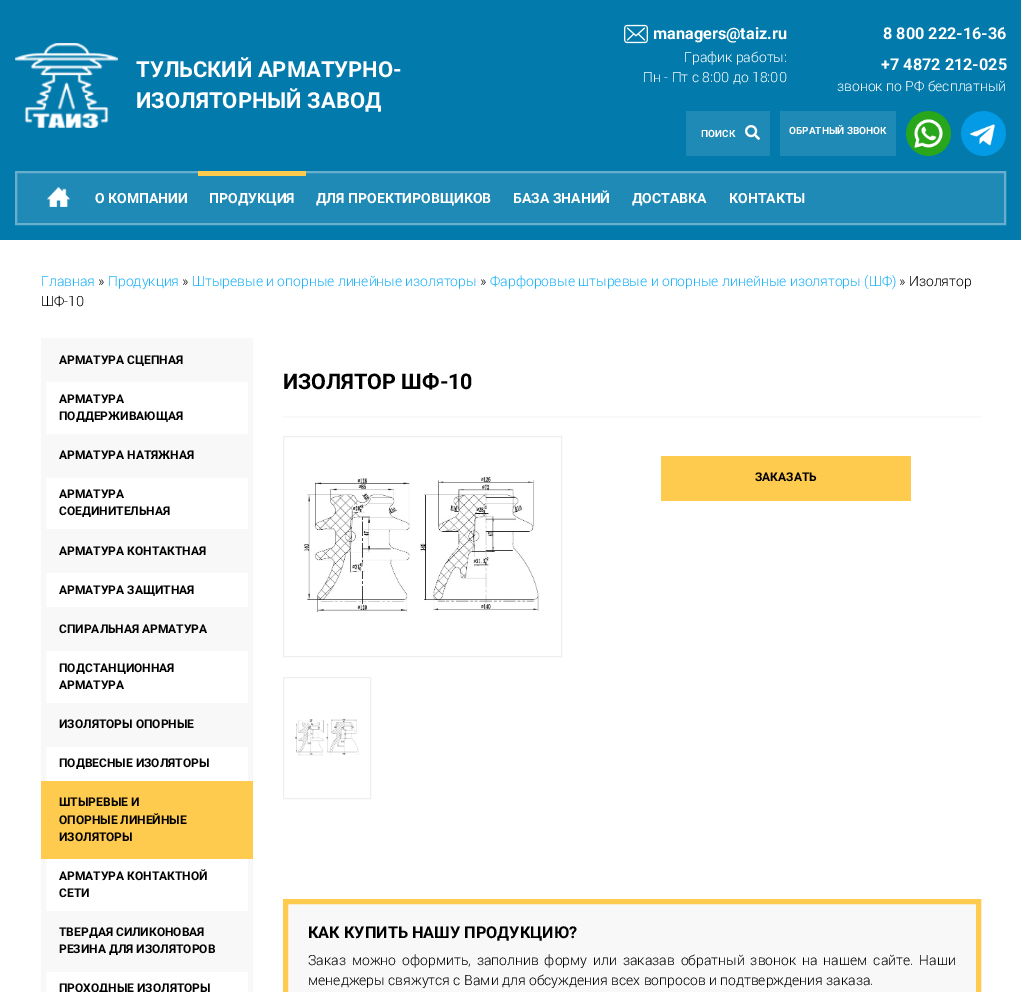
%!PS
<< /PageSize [1021 992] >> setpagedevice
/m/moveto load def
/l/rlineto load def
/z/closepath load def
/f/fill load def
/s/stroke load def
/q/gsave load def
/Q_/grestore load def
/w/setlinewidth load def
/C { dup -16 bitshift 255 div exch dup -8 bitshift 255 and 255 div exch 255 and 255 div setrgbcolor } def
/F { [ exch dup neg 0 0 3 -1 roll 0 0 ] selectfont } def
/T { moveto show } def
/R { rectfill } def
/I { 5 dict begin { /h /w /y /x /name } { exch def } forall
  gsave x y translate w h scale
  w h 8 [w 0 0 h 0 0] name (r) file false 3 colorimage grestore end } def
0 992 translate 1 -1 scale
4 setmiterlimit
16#FFFFFF C
0 0 1021 992 R
16#027AAC C
0 0 1021 240 R
(1.rgb) 15 43 103 85 I
/Roboto-Bold 22 F
16#FFFFFF C
(ТУЛЬСКИЙ АРМАТУРНО-) 136 77 T
(ИЗОЛЯТОРНЫЙ ЗАВОД) 136 108 T
(2.rgb) 624 24 24 20 I
/Roboto-Bold 16.25 F
(managers@taiz.ru) 653 39 T
/Roboto-Light 14 F
(График работы:) 684 62 T
(Пн - Пт с 8:00 до 18:00) 643 82 T
/Roboto-Bold 16.25 F
(8 800 222-16-36) 883 39 T
(+7 4872 212-025) 881 70 T
/Roboto-Light 14 F
(звонок по РФ бесплатный) 837 91 T
16#208AB6 C
686 111 84 45 R
/Roboto-Bold 10 F
16#FFFFFF C
(ПОИСК) 701 137 T
(3.rgb) 745 125 15 15 I
16#208AB6 C
780 111 116 45 R
16#FFFFFF C
(ОБРАТНЫЙ ЗВОНОК) 789 134 T
(4.rgb) 906 111 45 45 I
(5.rgb) 961 111 45 45 I
16#208AB6 C
16 172 m 989 0 l 0 52 l -989 0 l z q f Q_
16#67AFCD C
2 w
s
(6.rgb) 47 187 23 20 I
/Roboto-Bold 14 F
16#FFFFFF C
(О КОМПАНИИ) 95 203 T
16#FFCB4F C
198 171 108 5 R
16#FFFFFF C
(ПРОДУКЦИЯ) 209 203 T
(ДЛЯ ПРОЕКТИРОВЩИКОВ) 316 203 T
(БАЗА ЗНАНИЙ) 513 203 T
(ДОСТАВКА) 632 203 T
(КОНТАКТЫ) 729 203 T
/Roboto-Light 14 F
16#1DB2FC C
(Главная) 41 286 T
16#000000 C
(») 98 286 T
16#1DB2FC C
(Продукция) 108 286 T
16#000000 C
(») 182 286 T
16#1DB2FC C
(Штыревые и опорные линейные изоляторы) 192 286 T
16#000000 C
(») 480 286 T
16#1DB2FC C
(Фарфоровые штыревые и опорные линейные изоляторы \(ШФ\)) 490 286 T
16#000000 C
(» Изолятор) 899 286 T
(ШФ-10) 41 306 T
16#F8F8F8 C
5 w
43.5 340.5 207 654 rectstroke
46 343 202 39 R
/Roboto-Bold 12 F
16#000000 C
(АРМАТУРА СЦЕПНАЯ) 59 364 T
(АРМАТУРА) 59 403 T
(ПОДДЕРЖИВАЮЩАЯ) 59 420 T
16#F8F8F8 C
46 434 202 44 R
16#000000 C
(АРМАТУРА НАТЯЖНАЯ) 59 459 T
(АРМАТУРА) 59 498 T
(СОЕДИНИТЕЛЬНАЯ) 59 515 T
16#F8F8F8 C
46 529 202 44 R
16#000000 C
(АРМАТУРА КОНТАКТНАЯ) 59 555 T
(АРМАТУРА ЗАЩИТНАЯ) 59 594 T
16#F8F8F8 C
46 607 202 44 R
16#000000 C
(СПИРАЛЬНАЯ АРМАТУРА) 59 633 T
(ПОДСТАНЦИОННАЯ) 59 672 T
(АРМАТУРА) 59 689 T
16#F8F8F8 C
46 703 202 44 R
16#000000 C
(ИЗОЛЯТОРЫ ОПОРНЫЕ) 59 728 T
(ПОДВЕСНЫЕ ИЗОЛЯТОРЫ) 59 767 T
16#FFCB4F C
41 781 212 78 R
16#000000 C
(ШТЫРЕВЫЕ И) 59 806 T
(ОПОРНЫЕ ЛИНЕЙНЫЕ) 59 824 T
(ИЗОЛЯТОРЫ) 59 841 T
(АРМАТУРА КОНТАКТНОЙ) 59 880 T
(СЕТИ) 59 897 T
16#F8F8F8 C
46 911 202 61 R
16#000000 C
(ТВЕРДАЯ СИЛИКОНОВАЯ) 59 936 T
(РЕЗИНА ДЛЯ ИЗОЛЯТОРОВ) 59 953 T
(ПРОХОДНЫЕ ИЗОЛЯТОРЫ) 59 992 T
16#F9F9F9 C
283 416 698 2 R
/Roboto-Bold 21.5 F
16#000000 C
(ИЗОЛЯТОР ШФ-10) 283 389 T
16#EFEFEF C
1 w
283.5 436.5 278 220 rectstroke
(7.rgb) 303 477 236 135 I
283.5 677.5 87 121 rectstroke
(8.rgb) 295 718 64 38 I
16#FFCB4F C
661 456 250 45 R
/Roboto-Bold 12 F
16#000000 C
(ЗАКАЗАТЬ) 755 481 T
16#F8F8F8 C
285.5 901.5 m 693 0 l 0 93 l -693 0 l z q f Q_
16#FFCB4F C
5 w
s
/Roboto-Bold 16.25 F
16#000000 C
(КАК КУПИТЬ НАШУ ПРОДУКЦИЮ?) 308 938 T
/Roboto-Light 14 F
308 965 m 2.6 0 32 (Заказ можно оформить, заполнив форму или заказав обратный звонок на нашем сайте. Наши) widthshow
(менеджеры свяжутся с Вами для обсуждения всех вопросов и подтверждения заказа.) 308 985 T
showpage
